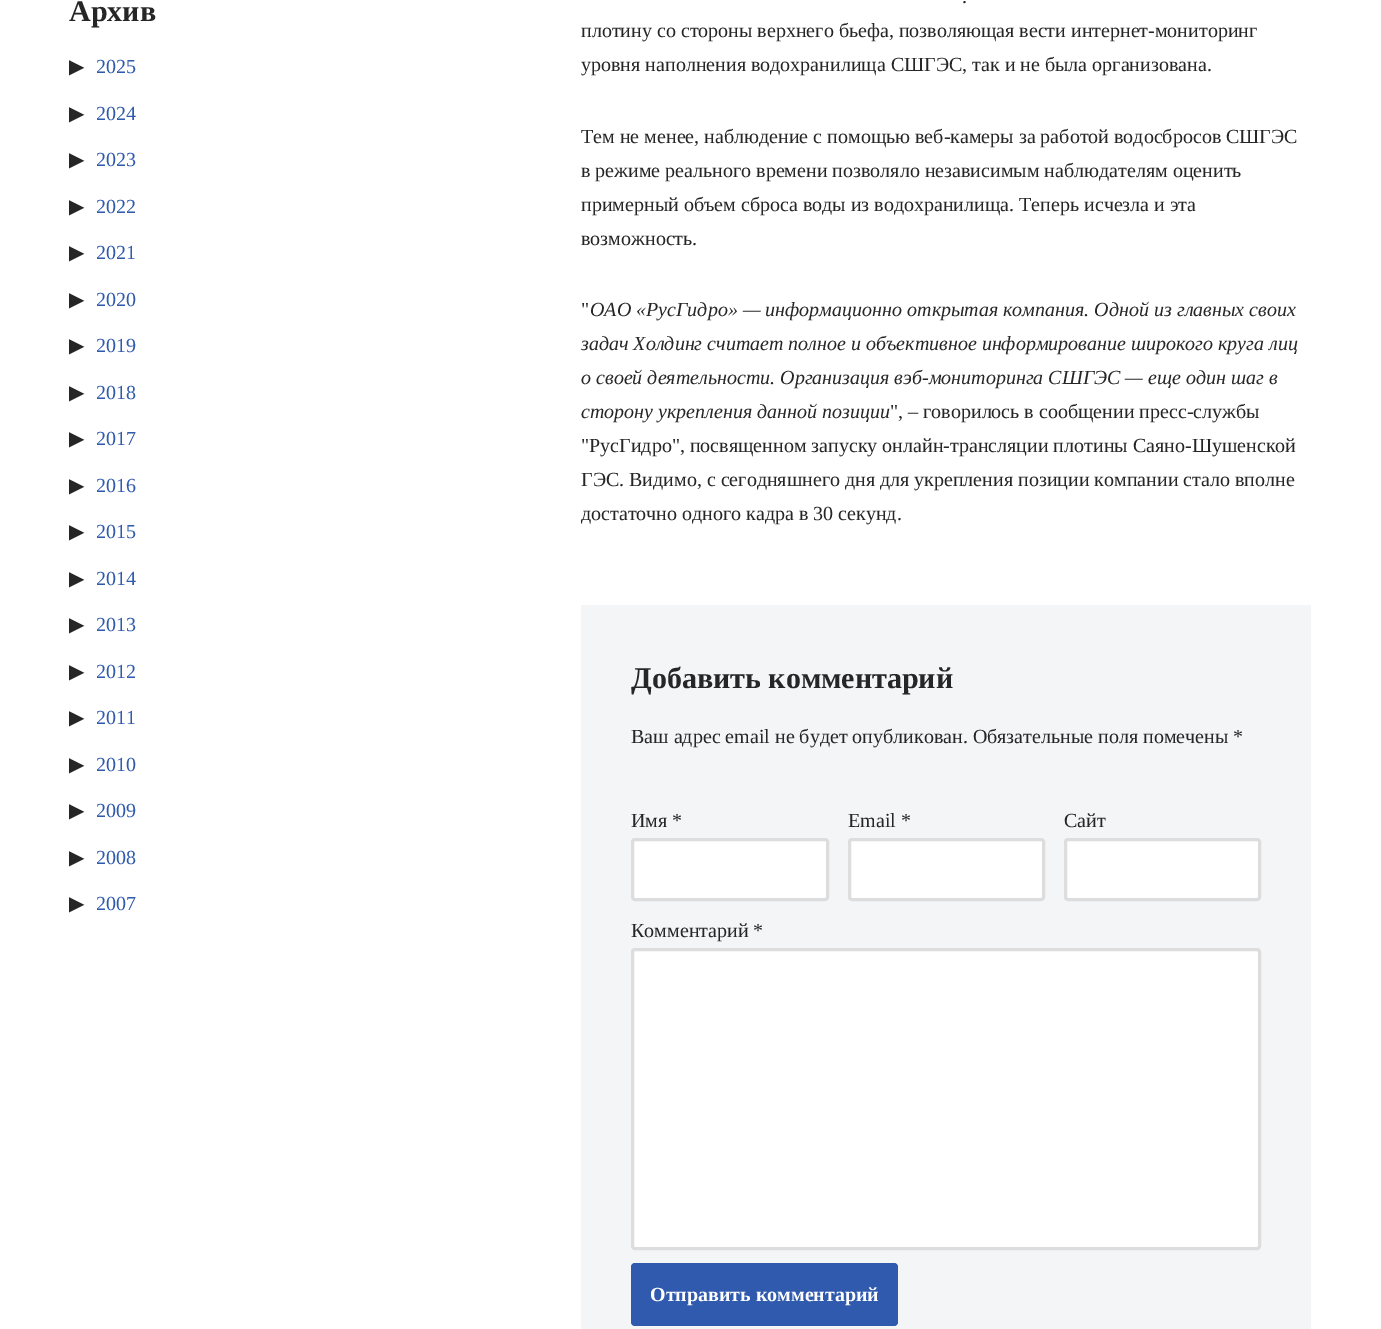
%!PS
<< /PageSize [1381 1329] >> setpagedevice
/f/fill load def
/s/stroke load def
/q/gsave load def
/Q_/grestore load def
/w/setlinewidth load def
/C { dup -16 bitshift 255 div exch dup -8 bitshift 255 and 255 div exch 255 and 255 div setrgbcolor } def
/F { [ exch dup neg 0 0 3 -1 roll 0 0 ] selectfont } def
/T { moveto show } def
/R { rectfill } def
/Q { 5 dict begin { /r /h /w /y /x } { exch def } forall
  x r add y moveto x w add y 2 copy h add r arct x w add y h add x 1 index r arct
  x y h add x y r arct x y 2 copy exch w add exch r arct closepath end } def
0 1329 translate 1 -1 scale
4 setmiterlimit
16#FFFFFF C
0 0 1381 1329 R
/LiberationSerif-Bold 30 F
16#272626 C
(Архив) 69 21 T
/DejaVuSans-Regular 20 F
(▶) 69 73 T
/LiberationSerif-Regular 20 F
16#2F5AAE C
(2025) 96 73 T
/DejaVuSans-Regular 20 F
16#272626 C
(▶) 69 120 T
/LiberationSerif-Regular 20 F
16#2F5AAE C
(2024) 96 120 T
/DejaVuSans-Regular 20 F
16#272626 C
(▶) 69 166 T
/LiberationSerif-Regular 20 F
16#2F5AAE C
(2023) 96 166 T
/DejaVuSans-Regular 20 F
16#272626 C
(▶) 69 213 T
/LiberationSerif-Regular 20 F
16#2F5AAE C
(2022) 96 213 T
/DejaVuSans-Regular 20 F
16#272626 C
(▶) 69 259 T
/LiberationSerif-Regular 20 F
16#2F5AAE C
(2021) 96 259 T
/DejaVuSans-Regular 20 F
16#272626 C
(▶) 69 306 T
/LiberationSerif-Regular 20 F
16#2F5AAE C
(2020) 96 306 T
/DejaVuSans-Regular 20 F
16#272626 C
(▶) 69 352 T
/LiberationSerif-Regular 20 F
16#2F5AAE C
(2019) 96 352 T
/DejaVuSans-Regular 20 F
16#272626 C
(▶) 69 399 T
/LiberationSerif-Regular 20 F
16#2F5AAE C
(2018) 96 399 T
/DejaVuSans-Regular 20 F
16#272626 C
(▶) 69 445 T
/LiberationSerif-Regular 20 F
16#2F5AAE C
(2017) 96 445 T
/DejaVuSans-Regular 20 F
16#272626 C
(▶) 69 492 T
/LiberationSerif-Regular 20 F
16#2F5AAE C
(2016) 96 492 T
/DejaVuSans-Regular 20 F
16#272626 C
(▶) 69 538 T
/LiberationSerif-Regular 20 F
16#2F5AAE C
(2015) 96 538 T
/DejaVuSans-Regular 20 F
16#272626 C
(▶) 69 585 T
/LiberationSerif-Regular 20 F
16#2F5AAE C
(2014) 96 585 T
/DejaVuSans-Regular 20 F
16#272626 C
(▶) 69 631 T
/LiberationSerif-Regular 20 F
16#2F5AAE C
(2013) 96 631 T
/DejaVuSans-Regular 20 F
16#272626 C
(▶) 69 678 T
/LiberationSerif-Regular 20 F
16#2F5AAE C
(2012) 96 678 T
/DejaVuSans-Regular 20 F
16#272626 C
(▶) 69 724 T
/LiberationSerif-Regular 20 F
16#2F5AAE C
(2011) 96 724 T
/DejaVuSans-Regular 20 F
16#272626 C
(▶) 69 771 T
/LiberationSerif-Regular 20 F
16#2F5AAE C
(2010) 96 771 T
/DejaVuSans-Regular 20 F
16#272626 C
(▶) 69 817 T
/LiberationSerif-Regular 20 F
16#2F5AAE C
(2009) 96 817 T
/DejaVuSans-Regular 20 F
16#272626 C
(▶) 69 864 T
/LiberationSerif-Regular 20 F
16#2F5AAE C
(2008) 96 864 T
/DejaVuSans-Regular 20 F
16#272626 C
(▶) 69 910 T
/LiberationSerif-Regular 20 F
16#2F5AAE C
(2007) 96 910 T
16#272626 C
(.) 962 3 T
(плотину со стороны верхнего бьефа, позволяющая вести интернет-мониторинг) 581 37 T
(уровня наполнения водохранилища СШГЭС, так и не была организована.) 581 71 T
(Тем не менее, наблюдение с помощью веб-камеры за работой водосбросов СШГЭС) 581 143 T
(в режиме реального времени позволяло независимым наблюдателям оценить) 581 177 T
(примерный объем сброса воды из водохранилища. Теперь исчезла и эта) 581 211 T
(возможность.) 581 245 T
(") 581 316 T
/LiberationSerif-Italic 20 F
(ОАО «РусГидро» — информационно открытая компания. Одной из главных своих) 590 316 T
(задач Холдинг считает полное и объективное информирование широкого круга лиц) 581 350 T
(о своей деятельности. Организация вэб-мониторинга СШГЭС — еще один шаг в) 581 384 T
(сторону укрепления данной позиции) 581 418 T
/LiberationSerif-Regular 20 F
(", – говорилось в сообщении пресс-службы) 890 418 T
("РусГидро", посвященном запуску онлайн-трансляции плотины Саяно-Шушенской) 581 452 T
(ГЭС. Видимо, с сегодняшнего дня для укрепления позиции компании стало вполне) 581 486 T
(достаточно одного кадра в 30 секунд.) 581 520 T
16#F4F5F7 C
581 605 730 724 R
/LiberationSerif-Bold 30 F
16#272626 C
(Добавить комментарий) 631 688 T
/LiberationSerif-Regular 20 F
(Ваш адрес email не будет опубликован. Обязательные поля помечены *) 631 743 T
(Имя *) 631 827 T
16#FFFFFF C
632.5 839.5 195 60 2.5 Q q f Q_
16#DDDDDD C
3 w
s
16#272626 C
(Email *) 848 827 T
16#FFFFFF C
849.5 839.5 194 60 2.5 Q q f Q_
16#DDDDDD C
s
16#272626 C
(Сайт) 1064 827 T
16#FFFFFF C
1065.5 839.5 194 60 2.5 Q q f Q_
16#DDDDDD C
s
16#272626 C
(Комментарий *) 631 937 T
16#FFFFFF C
632.5 949.5 627 299 2.5 Q q f Q_
16#DDDDDD C
s
16#2F5AAE C
631 1263 267 63 4 Q f
/LiberationSerif-Bold 20 F
16#FFFFFF C
(Отправить комментарий) 650 1301 T
showpage
